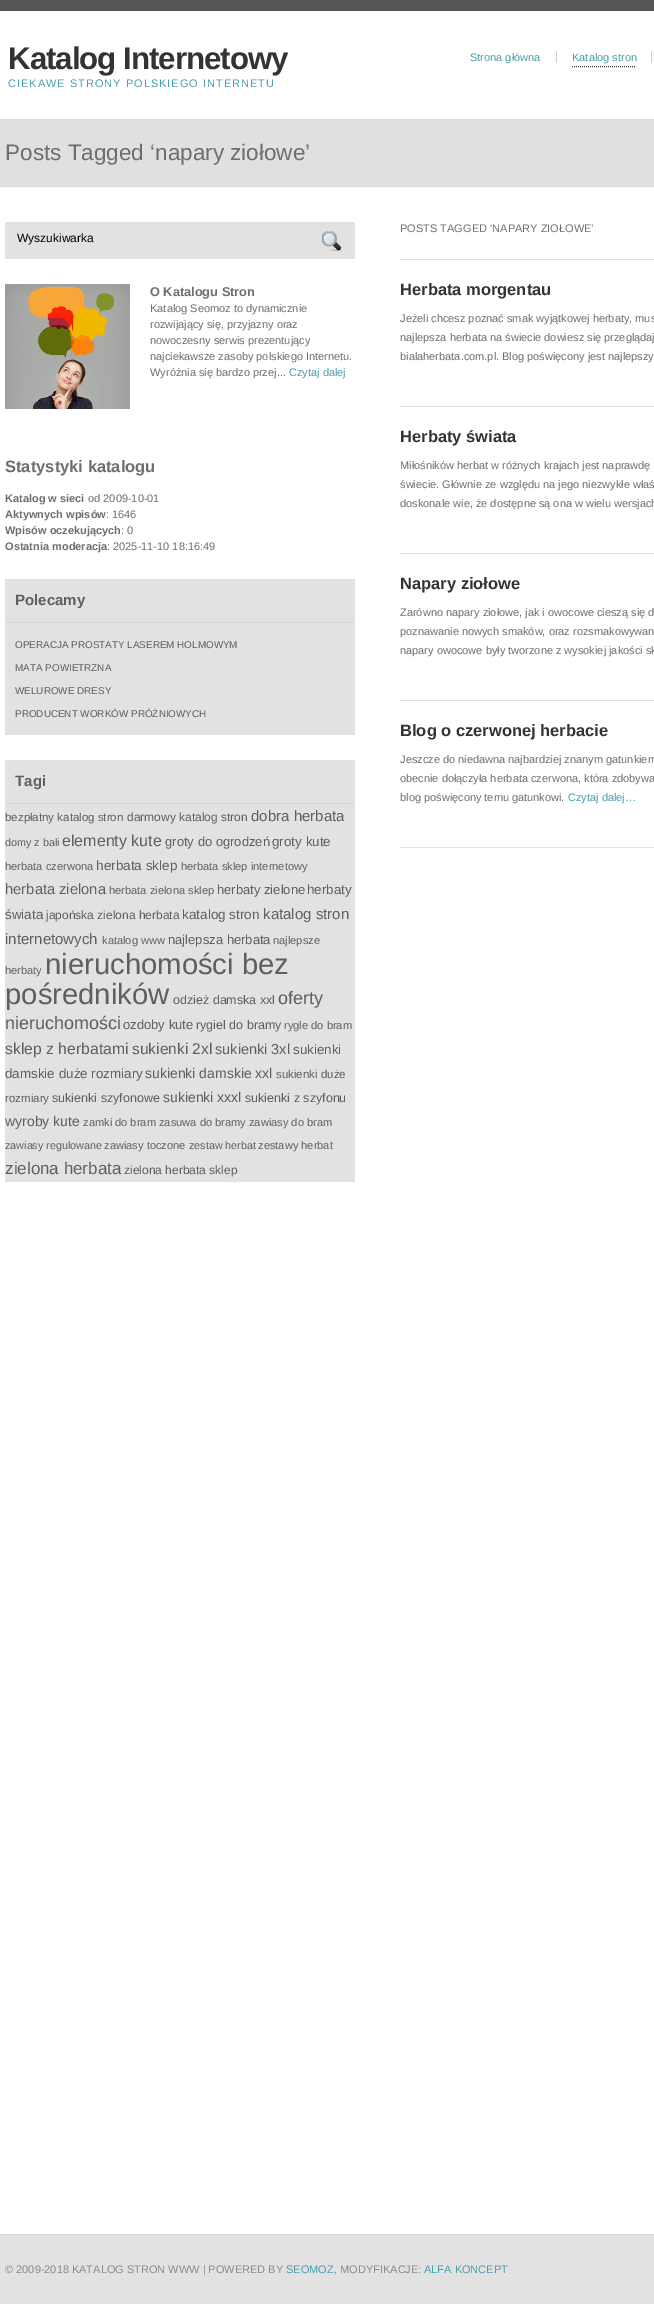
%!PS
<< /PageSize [654 2304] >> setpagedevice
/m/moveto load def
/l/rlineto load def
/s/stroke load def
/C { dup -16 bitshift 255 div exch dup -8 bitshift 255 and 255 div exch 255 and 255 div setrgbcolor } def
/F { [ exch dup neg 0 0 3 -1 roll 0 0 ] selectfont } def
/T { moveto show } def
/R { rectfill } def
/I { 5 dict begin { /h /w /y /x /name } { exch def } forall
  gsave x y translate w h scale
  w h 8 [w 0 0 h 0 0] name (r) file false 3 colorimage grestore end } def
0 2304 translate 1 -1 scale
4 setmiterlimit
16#FFFFFF C
0 0 654 2304 R
16#555555 C
0 0 654 11 R
/LiberationSans-Bold 31.25 F
16#333333 C
8 69 m -1 0 (Katalog Internetowy) ashow
/LiberationSans-Regular 11 F
16#4A9DAA C
8 87 m 1 0 (CIEKAWE STRONY POLSKIEGO INTERNETU) ashow
(Strona główna) 470 61 T
(Katalog stron) 572 61 T
16#CCCCCC C
556 51 1 12 R
16#333333 C
[1 1] 0 setdash
572 66.5 m 64 0 l s
16#CCCCCC C
651 51 1 12 R
16#E0E0E0 C
0 120 654 66 R
16#DADADA C
0 119 654 1 R
0 186 654 1 R
/LiberationSans-Regular 22.5 F
16#6E6E6E C
(Posts Tagged ‘napary ziołowe’) 5 160 T
16#E2E2E2 C
5 222 350 37 R
/LiberationSans-Regular 12 F
16#000000 C
(Wyszukiwarka) 17 242 T
(1.rgb) 322 231 20 20 I
(2.rgb) 5 284 125 125 I
/LiberationSans-Bold 12.75 F
16#6E6E6E C
(O Katalogu Stron) 150 296 T
/LiberationSans-Regular 11 F
(Katalog Seomoz to dynamicznie) 150 312 T
(rozwijający się, przyjazny oraz) 150 328 T
(nowoczesny serwis prezentujący) 150 344 T
(najciekawsze zasoby polskiego Internetu.) 150 360 T
(Wyróżnia się bardzo przej...) 150 376 T
16#4A9DAA C
(Czytaj dalej) 289 376 T
/LiberationSans-Bold 16.5 F
16#6E6E6E C
(Statystyki katalogu) 5 472 T
/LiberationSans-Bold 11 F
(Katalog w sieci) 5 502 T
/LiberationSans-Regular 11 F
(od 2009-10-01) 88 502 T
/LiberationSans-Bold 11 F
(Aktywnych wpisów) 5 518 T
/LiberationSans-Regular 11 F
(: 1646) 106 518 T
/LiberationSans-Bold 11 F
(Wpisów oczekujących) 5 534 T
/LiberationSans-Regular 11 F
(: 0) 121 534 T
/LiberationSans-Bold 11 F
(Ostatnia moderacja) 5 550 T
/LiberationSans-Regular 11 F
(: 2025-11-10 18:16:49) 107 550 T
16#E2E2E2 C
5 579 350 156 R
16#D7D7D7 C
5 622 350 1 R
/LiberationSans-Bold 15 F
16#5F5F5F C
(Polecamy) 15 605 T
/LiberationSans-Regular 9.9 F
(OPERACJA PROSTATY LASEREM HOLMOWYM) 15 648 T
(MATA POWIETRZNA) 15 671 T
(WELUROWE DRESY) 15 694 T
(PRODUCENT WORKÓW PRÓŻNIOWYCH) 15 717 T
16#E2E2E2 C
5 760 350 422 R
16#D7D7D7 C
5 803 350 1 R
/LiberationSans-Bold 15 F
16#5F5F5F C
(Tagi) 15 786 T
/LiberationSans-Regular 11.5 F
(bezpłatny katalog stron) 5 821 T
/LiberationSans-Regular 12 F
(darmowy katalog stron) 127 821 T
/LiberationSans-Regular 15 F
(dobra herbata) 251 821 T
/LiberationSans-Regular 10.75 F
(domy z bali) 5 846 T
/LiberationSans-Regular 16 F
(elementy kute) 62 846 T
/LiberationSans-Regular 13 F
(groty do ogrodzeń) 165 846 T
/LiberationSans-Regular 13.4 F
(groty kute) 272 846 T
/LiberationSans-Regular 11.1 F
(herbata czerwona) 5 870 T
/LiberationSans-Regular 13.5 F
(herbata sklep) 96 870 T
/LiberationSans-Regular 11.1 F
(herbata sklep internetowy) 181 870 T
/LiberationSans-Regular 14.75 F
(herbata zielona) 5 894 T
/LiberationSans-Regular 11.1 F
(herbata zielona sklep) 109 894 T
/LiberationSans-Regular 13 F
(herbaty zielone) 217 894 T
/LiberationSans-Regular 13.4 F
(herbaty) 307 894 T
(świata) 5 919 T
/LiberationSans-Regular 12 F
(japońska zielona herbata) 46 919 T
/LiberationSans-Regular 13.5 F
(katalog stron) 182 919 T
/LiberationSans-Regular 15 F
(katalog stron) 263 919 T
(internetowych) 5 944 T
/LiberationSans-Regular 11.1 F
(katalog www) 102 944 T
/LiberationSans-Regular 13 F
(najlepsza herbata) 168 944 T
/LiberationSans-Regular 11.1 F
(najlepsze) 273 944 T
(herbaty) 5 974 T
/LiberationSans-Regular 29.25 F
(nieruchomości bez) 45 974 T
(pośredników) 5 1004 T
/LiberationSans-Regular 12.5 F
(odzież damska xxl) 173 1004 T
/LiberationSans-Regular 18 F
(oferty) 278 1004 T
(nieruchomości) 5 1029 T
/LiberationSans-Regular 13 F
(ozdoby kute) 123 1029 T
/LiberationSans-Regular 12.5 F
(rygiel do bramy) 196 1029 T
/LiberationSans-Regular 11.1 F
(rygle do bram) 284 1029 T
/LiberationSans-Regular 15.75 F
(sklep z herbatami) 5 1054 T
/LiberationSans-Regular 15.5 F
(sukienki 2xl) 132 1054 T
/LiberationSans-Regular 14.5 F
(sukienki 3xl) 215 1054 T
/LiberationSans-Regular 13.4 F
(sukienki) 293 1054 T
(damskie duże rozmiary) 5 1078 T
/LiberationSans-Regular 14 F
(sukienki damskie xxl) 145 1078 T
/LiberationSans-Regular 11.5 F
(sukienki duże) 276 1078 T
(rozmiary) 5 1102 T
/LiberationSans-Regular 12.5 F
(sukienki szyfonowe) 52 1102 T
/LiberationSans-Regular 14 F
(sukienki xxxl) 163 1102 T
/LiberationSans-Regular 12.5 F
(sukienki z szyfonu) 245 1102 T
/LiberationSans-Regular 14 F
(wyroby kute) 5 1126 T
/LiberationSans-Regular 11.1 F
(zamki do bram zasuwa do bramy zawiasy do bram) 83 1126 T
/LiberationSans-Regular 10.75 F
(zawiasy regulowane) 5 1149 T
/LiberationSans-Regular 11.1 F
(zawiasy toczone) 104 1149 T
/LiberationSans-Regular 10.75 F
(zestaw herbat) 189 1149 T
/LiberationSans-Regular 11.1 F
(zestawy herbat) 258 1149 T
/LiberationSans-Regular 17 F
(zielona herbata) 5 1174 T
/LiberationSans-Regular 12 F
(zielona herbata sklep) 124 1174 T
/LiberationSans-Regular 11 F
16#6E6E6E C
(POSTS TAGGED ‘NAPARY ZIOŁOWE’) 400 232 T
16#E0E0E0 C
400 259 254 1 R
/LiberationSans-Bold 16.5 F
16#333333 C
(Herbata morgentau) 400 295 T
/LiberationSans-Regular 11 F
16#6E6E6E C
(Jeżeli chcesz poznać smak wyjątkowej herbaty, mus) 400 322 T
(najlepsza herbata na świecie dowiesz się przeglądaj) 400 341 T
(bialaherbata.com.pl. Blog poświęcony jest najlepszy) 400 360 T
16#E0E0E0 C
400 406 254 1 R
/LiberationSans-Bold 16.5 F
16#333333 C
(Herbaty świata) 400 442 T
/LiberationSans-Regular 11 F
16#6E6E6E C
(Miłośników herbat w różnych krajach jest naprawdę) 400 469 T
(świecie. Głównie ze względu na jego niezwykłe właś) 400 488 T
(doskonale wie, że dostępne są ona w wielu wersjach) 400 507 T
16#E0E0E0 C
400 553 254 1 R
/LiberationSans-Bold 16.5 F
16#333333 C
(Napary ziołowe) 400 589 T
/LiberationSans-Regular 11 F
16#6E6E6E C
(Zarówno napary ziołowe, jak i owocowe cieszą się d) 400 616 T
(poznawanie nowych smaków, oraz rozsmakowywan) 400 635 T
(napary owocowe były tworzone z wysokiej jakości sk) 400 654 T
16#E0E0E0 C
400 700 254 1 R
/LiberationSans-Bold 16.5 F
16#333333 C
(Blog o czerwonej herbacie) 400 736 T
/LiberationSans-Regular 11 F
16#6E6E6E C
(Jeszcze do niedawna najbardziej znanym gatunkiem) 400 763 T
(obecnie dołączyła herbata czerwona, która zdobywa) 400 782 T
(blog poświęcony temu gatunkowi.) 400 801 T
16#4A9DAA C
(Czytaj dalej…) 568 801 T
16#E0E0E0 C
400 847 254 1 R
16#E2E2E2 C
0 2235 654 69 R
16#D4D4D4 C
0 2234 654 1 R
16#8A8A8A C
(© 2009-2018 KATALOG STRON WWW | POWERED BY) 5 2273 T
16#4A9DAA C
(SEOMOZ) 286 2273 T
16#8A8A8A C
(, MODYFIKACJE:) 334 2273 T
16#4A9DAA C
(ALFA KONCEPT) 424 2273 T
showpage
